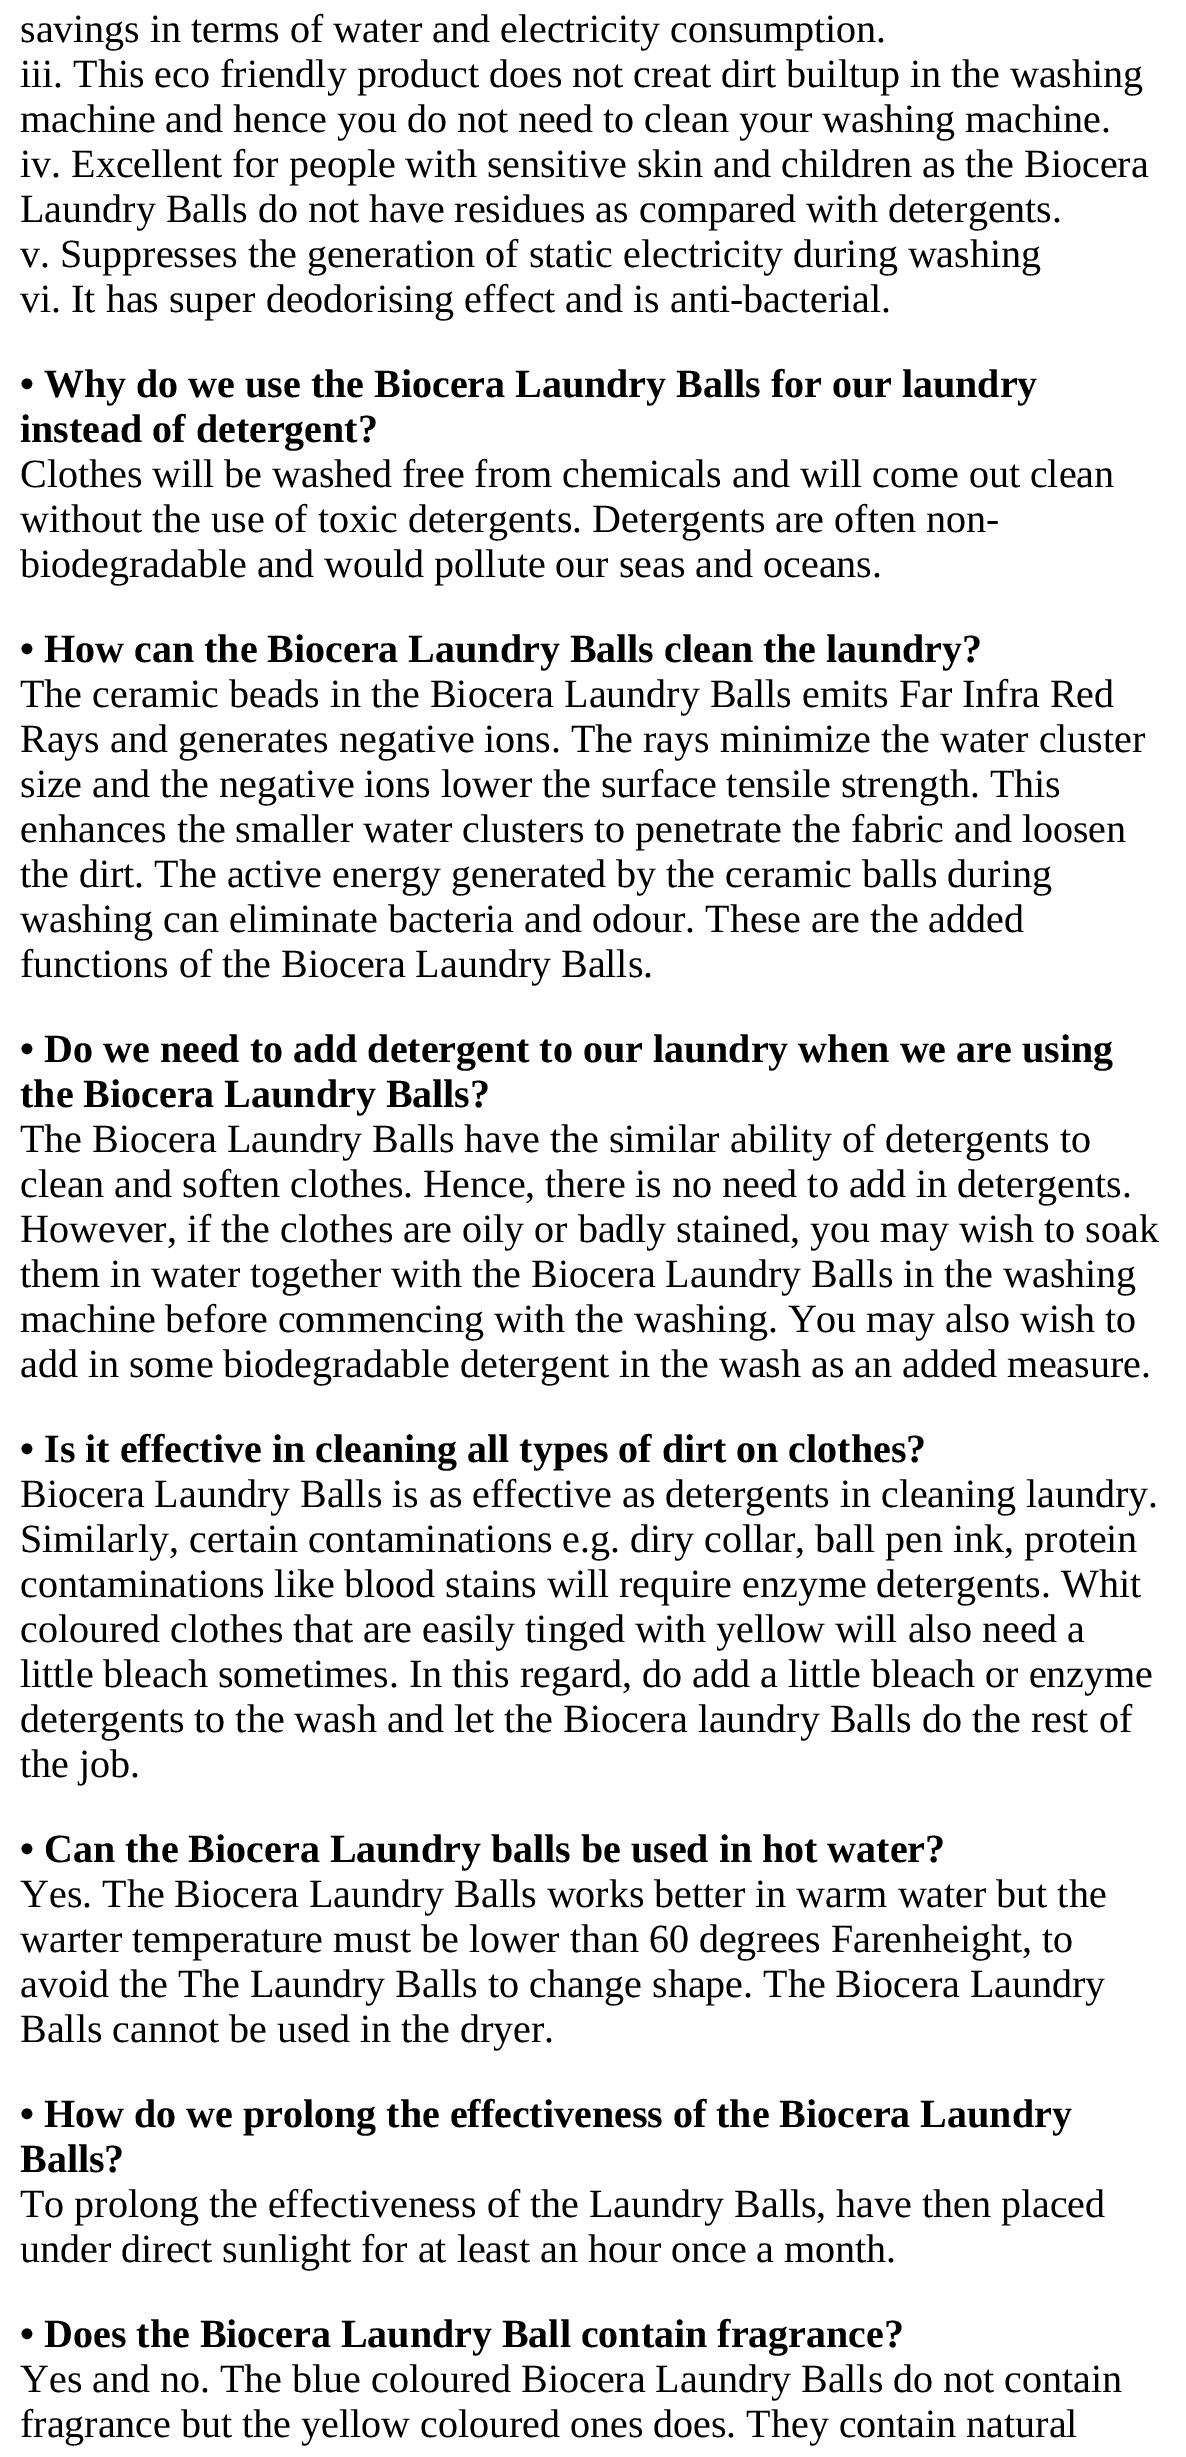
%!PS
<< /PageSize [1186 2457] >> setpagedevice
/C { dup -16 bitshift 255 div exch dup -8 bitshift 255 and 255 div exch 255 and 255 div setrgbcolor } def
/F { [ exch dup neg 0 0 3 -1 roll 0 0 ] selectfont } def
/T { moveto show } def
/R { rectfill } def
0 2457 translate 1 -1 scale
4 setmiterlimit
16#FFFFFF C
0 0 1186 2457 R
/LiberationSerif-Regular 40 F
16#000000 C
(savings in terms of water and electricity consumption.) 20 42 T
(iii. This eco friendly product does not creat dirt builtup in the washing) 20 87 T
(machine and hence you do not need to clean your washing machine.) 20 132 T
(iv. Excellent for people with sensitive skin and children as the Biocera) 20 177 T
(Laundry Balls do not have residues as compared with detergents.) 20 222 T
(v. Suppresses the generation of static electricity during washing) 20 267 T
(vi. It has super deodorising effect and is anti-bacterial.) 20 312 T
/LiberationSerif-Bold 40 F
(• Why do we use the Biocera Laundry Balls for our laundry) 20 397 T
(instead of detergent?) 20 442 T
/LiberationSerif-Regular 40 F
(Clothes will be washed free from chemicals and will come out clean) 20 487 T
(without the use of toxic detergents. Detergents are often non-) 20 532 T
(biodegradable and would pollute our seas and oceans.) 20 577 T
/LiberationSerif-Bold 40 F
(• How can the Biocera Laundry Balls clean the laundry?) 20 662 T
/LiberationSerif-Regular 40 F
(The ceramic beads in the Biocera Laundry Balls emits Far Infra Red) 20 707 T
(Rays and generates negative ions. The rays minimize the water cluster) 20 752 T
(size and the negative ions lower the surface tensile strength. This) 20 797 T
(enhances the smaller water clusters to penetrate the fabric and loosen) 20 842 T
(the dirt. The active energy generated by the ceramic balls during) 20 887 T
(washing can eliminate bacteria and odour. These are the added) 20 932 T
(functions of the Biocera Laundry Balls.) 20 977 T
/LiberationSerif-Bold 40 F
(• Do we need to add detergent to our laundry when we are using) 20 1062 T
(the Biocera Laundry Balls?) 20 1107 T
/LiberationSerif-Regular 40 F
(The Biocera Laundry Balls have the similar ability of detergents to) 20 1152 T
(clean and soften clothes. Hence, there is no need to add in detergents.) 20 1197 T
(However, if the clothes are oily or badly stained, you may wish to soak) 20 1242 T
(them in water together with the Biocera Laundry Balls in the washing) 20 1287 T
(machine before commencing with the washing. You may also wish to) 20 1332 T
(add in some biodegradable detergent in the wash as an added measure.) 20 1377 T
/LiberationSerif-Bold 40 F
(• Is it effective in cleaning all types of dirt on clothes?) 20 1462 T
/LiberationSerif-Regular 40 F
(Biocera Laundry Balls is as effective as detergents in cleaning laundry.) 20 1507 T
(Similarly, certain contaminations e.g. diry collar, ball pen ink, protein) 20 1552 T
(contaminations like blood stains will require enzyme detergents. Whit) 20 1597 T
(coloured clothes that are easily tinged with yellow will also need a) 20 1642 T
(little bleach sometimes. In this regard, do add a little bleach or enzyme) 20 1687 T
(detergents to the wash and let the Biocera laundry Balls do the rest of) 20 1732 T
(the job.) 20 1777 T
/LiberationSerif-Bold 40 F
(• Can the Biocera Laundry balls be used in hot water?) 20 1862 T
/LiberationSerif-Regular 40 F
(Yes. The Biocera Laundry Balls works better in warm water but the) 20 1907 T
(warter temperature must be lower than 60 degrees Farenheight, to) 20 1952 T
(avoid the The Laundry Balls to change shape. The Biocera Laundry) 20 1997 T
(Balls cannot be used in the dryer.) 20 2042 T
/LiberationSerif-Bold 40 F
(• How do we prolong the effectiveness of the Biocera Laundry) 20 2127 T
(Balls?) 20 2172 T
/LiberationSerif-Regular 40 F
(To prolong the effectiveness of the Laundry Balls, have then placed) 20 2217 T
(under direct sunlight for at least an hour once a month.) 20 2262 T
/LiberationSerif-Bold 40 F
(• Does the Biocera Laundry Ball contain fragrance?) 20 2347 T
/LiberationSerif-Regular 40 F
(Yes and no. The blue coloured Biocera Laundry Balls do not contain) 20 2392 T
(fragrance but the yellow coloured ones does. They contain natural) 20 2437 T
showpage
